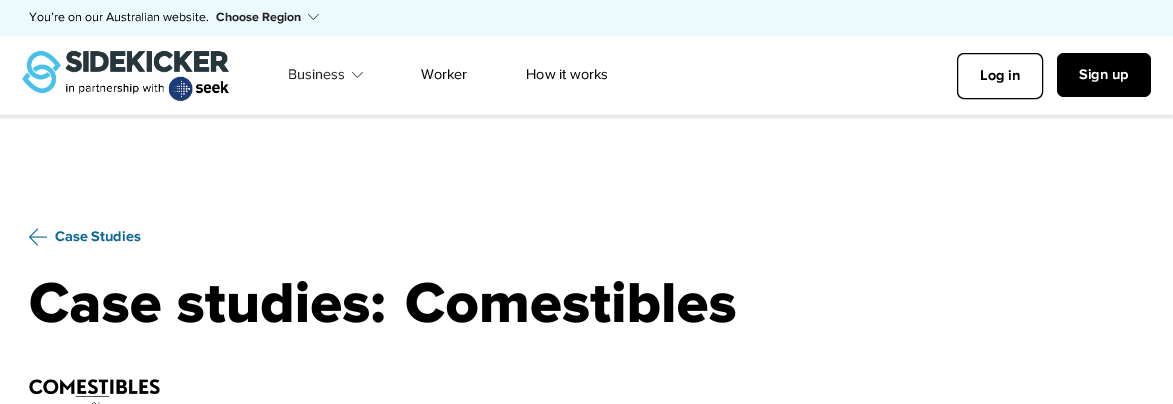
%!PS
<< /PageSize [1173 404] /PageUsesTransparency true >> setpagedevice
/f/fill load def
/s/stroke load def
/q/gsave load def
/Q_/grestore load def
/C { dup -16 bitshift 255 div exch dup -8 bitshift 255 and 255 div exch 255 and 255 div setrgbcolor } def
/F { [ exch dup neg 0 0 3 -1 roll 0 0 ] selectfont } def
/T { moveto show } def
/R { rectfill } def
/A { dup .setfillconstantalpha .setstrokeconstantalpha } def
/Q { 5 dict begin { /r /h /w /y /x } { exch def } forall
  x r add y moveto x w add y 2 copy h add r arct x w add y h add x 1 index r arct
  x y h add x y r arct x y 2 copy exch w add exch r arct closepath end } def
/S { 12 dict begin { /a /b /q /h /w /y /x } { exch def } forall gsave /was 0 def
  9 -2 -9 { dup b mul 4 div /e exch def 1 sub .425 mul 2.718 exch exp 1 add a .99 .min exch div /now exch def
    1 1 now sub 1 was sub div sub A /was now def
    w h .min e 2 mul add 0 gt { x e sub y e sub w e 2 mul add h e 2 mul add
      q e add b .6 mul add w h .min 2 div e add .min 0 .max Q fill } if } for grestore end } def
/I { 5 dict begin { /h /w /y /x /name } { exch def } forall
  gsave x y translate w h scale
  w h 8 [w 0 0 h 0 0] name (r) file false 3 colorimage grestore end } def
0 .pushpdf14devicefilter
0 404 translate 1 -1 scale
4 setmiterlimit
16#FFFFFF C
0 0 1173 404 R
q
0 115 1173 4 rectclip
16#000000 C
0 39 1173 79 0 1.5 .1 S
Q_
16#ECF9FD C
0 0 1173 36 R
/ProximaNova-Regular 12.4 F
16#000000 C
(You’re on our Australian website.) 29 21 T
/ProximaNova-Bold 12.4 F
16#222222 C
(Choose Region) 216 21 T
(1.rgb) 308 14 11 6 I
(2.rgb) 22 50 207 51 I
/ProximaNova-Regular 14.5 F
(Business) 288 79 T
(3.rgb) 352 72 11 6 I
16#000000 C
(Worker) 421 79 T
(How it works) 526 79 T
957.5 53.5 85 45 6.5 Q s
/ProximaNova-Bold 14.5 F
(Log in) 980 80 T
1057 53 94 44 7 Q f
16#FFFFFF C
(Sign up) 1079 79 T
(4.rgb) 29 228 18 18 I
16#0D6896 C
(Case Studies) 55 241 T
(5.rgb) 30 281 354 42 I
(6.rgb) 406 281 330 42 I
(7.rgb) 29 379 131 25 I
.poppdf14devicefilter showpage
